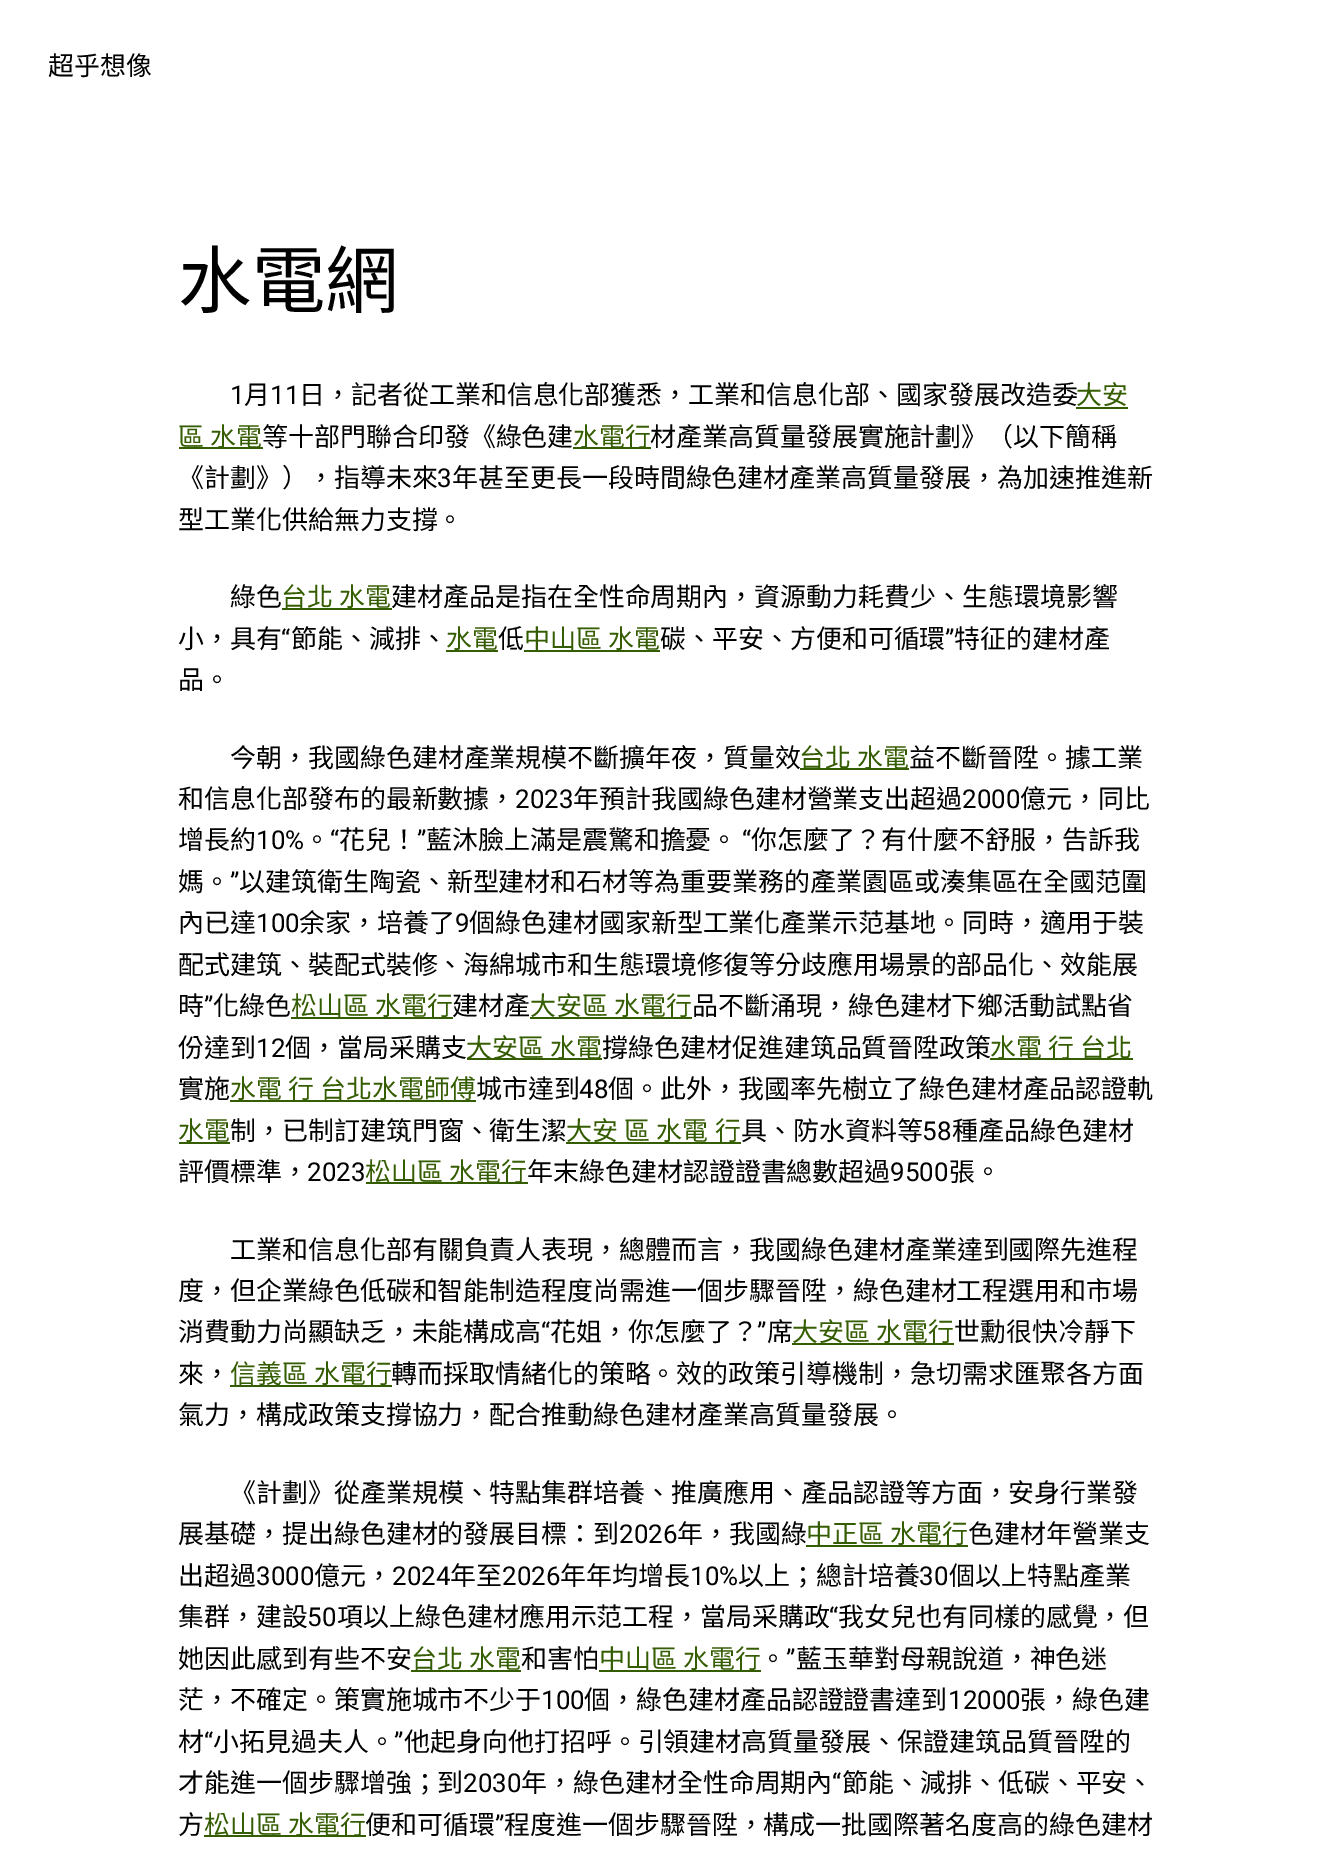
%!PS
<< /PageSize [1330 1850] >> setpagedevice
/m/moveto load def
/C { dup -16 bitshift 255 div exch dup -8 bitshift 255 and 255 div exch 255 and 255 div setrgbcolor } def
/F { [ exch dup neg 0 0 3 -1 roll 0 0 ] selectfont } def
/T { moveto show } def
/R { rectfill } def
0 1850 translate 1 -1 scale
4 setmiterlimit
16#FFFFFF C
0 0 1330 1850 R
/NotoSansCJKTC-Regular 25.95 F
16#000000 C
(超乎想像) 48 75 T
/NotoSansCJKTC-Regular 73.5 F
(水電網) 178 307 T
/Roboto-Regular 25.95 F
(1) 230 404 T
/NotoSansCJKTC-Regular 25.95 F
(月) 244 404 T
/Roboto-Regular 25.95 F
(11) 270 404 T
/NotoSansCJKTC-Regular 25.95 F
(日，記者從工業和信息化部獲悉，工業和信息化部、國家發展改造委) 299 404 T
16#345C00 C
(大安) 1076 404 T
1076 407 52 2 R
179 447 84 2 R
178 446 m .5 0 32 (區 水電) widthshow
16#000000 C
(等十部門聯合印發《綠色建) 262 446 T
16#345C00 C
573 447 78 2 R
(水電行) 573 446 T
16#000000 C
(材產業高質量發展實施計劃》（以下簡稱) 650 446 T
(《計劃》），指導未來) 178 487 T
/Roboto-Regular 25.95 F
(3) 437 487 T
/NotoSansCJKTC-Regular 25.95 F
(年甚至更長一段時間綠色建材產業高質量發展，為加速推進新) 452 487 T
(型工業化供給無力支撐。) 178 529 T
(綠色) 230 606 T
16#345C00 C
282 608 110 2 R
281 606 m .5 0 32 (台北 水電) widthshow
16#000000 C
(建材產品是指在全性命周期內，資源動力耗費少、生態環境影響) 391 606 T
(小，具有) 178 648 T
/Roboto-Regular 25.95 F
(“) 281 648 T
/NotoSansCJKTC-Regular 25.95 F
(節能、減排、) 291 648 T
16#345C00 C
446 650 52 2 R
(水電) 446 648 T
16#000000 C
(低) 498 648 T
16#345C00 C
524 650 136 2 R
524 648 m .5 0 32 (中山區 水電) widthshow
16#000000 C
(碳、平安、方便和可循環) 660 648 T
/Roboto-Regular 25.95 F
(”) 945 648 T
/NotoSansCJKTC-Regular 25.95 F
(特征的建材產) 954 648 T
(品。) 178 689 T
(今朝，我國綠色建材產業規模不斷擴年夜，質量效) 230 767 T
16#345C00 C
800 768 109 2 R
799 767 m .5 0 32 (台北 水電) widthshow
16#000000 C
(益不斷晉陞。據工業) 909 767 T
(和信息化部發布的最新數據，) 178 808 T
/Roboto-Regular 25.95 F
(2023) 515 808 T
/NotoSansCJKTC-Regular 25.95 F
(年預計我國綠色建材營業支出超過) 573 808 T
/Roboto-Regular 25.95 F
(2000) 962 808 T
/NotoSansCJKTC-Regular 25.95 F
(億元，同比) 1020 808 T
(增長約) 178 849 T
/Roboto-Regular 25.95 F
(10%) 256 849 T
/NotoSansCJKTC-Regular 25.95 F
(。) 304 849 T
/Roboto-Regular 25.95 F
(“) 330 849 T
/NotoSansCJKTC-Regular 25.95 F
(花兒！) 339 849 T
/Roboto-Regular 25.95 F
(”) 417 849 T
/NotoSansCJKTC-Regular 25.95 F
(藍沐臉上滿是震驚和擔憂。) 426 849 T
/Roboto-Regular 25.95 F
(“) 742 849 T
/NotoSansCJKTC-Regular 25.95 F
(你怎麼了？有什麼不舒服，告訴我) 751 849 T
(媽。) 178 891 T
/Roboto-Regular 25.95 F
(”) 230 891 T
/NotoSansCJKTC-Regular 25.95 F
(以建筑衛生陶瓷、新型建材和石材等為重要業務的產業園區或湊集區在全國范圍) 239 891 T
(內已達) 178 932 T
/Roboto-Regular 25.95 F
(100) 256 932 T
/NotoSansCJKTC-Regular 25.95 F
(余家，培養了) 299 932 T
/Roboto-Regular 25.95 F
(9) 455 932 T
/NotoSansCJKTC-Regular 25.95 F
(個綠色建材國家新型工業化產業示范基地。同時，適用于裝) 469 932 T
(配式建筑、裝配式裝修、海綿城市和生態環境修復等分歧應用場景的部品化、效能展) 178 974 T
(時) 178 1015 T
/Roboto-Regular 25.95 F
(”) 204 1015 T
/NotoSansCJKTC-Regular 25.95 F
(化綠色) 213 1015 T
16#345C00 C
291 1017 162 2 R
291 1015 m .5 0 32 (松山區 水電行) widthshow
16#000000 C
(建材產) 452 1015 T
16#345C00 C
530 1017 162 2 R
530 1015 m .5 0 32 (大安區 水電行) widthshow
16#000000 C
(品不斷涌現，綠色建材下鄉活動試點省) 692 1015 T
(份達到) 178 1057 T
/Roboto-Regular 25.95 F
(12) 256 1057 T
/NotoSansCJKTC-Regular 25.95 F
(個，當局采購支) 285 1057 T
16#345C00 C
467 1058 135 2 R
466 1057 m .5 0 32 (大安區 水電) widthshow
16#000000 C
(撐綠色建材促進建筑品質晉陞政策) 602 1057 T
16#345C00 C
990 1058 143 2 R
990 1057 m .5 0 32 (水電 行 台北) widthshow
16#000000 C
(實施) 178 1098 T
16#345C00 C
230 1100 246 2 R
230 1098 m .5 0 32 (水電 行 台北) widthshow
(水電師傅) 372 1098 T
16#000000 C
(城市達到) 476 1098 T
/Roboto-Regular 25.95 F
(48) 579 1098 T
/NotoSansCJKTC-Regular 25.95 F
(個。此外，我國率先樹立了綠色建材產品認證軌) 608 1098 T
16#345C00 C
179 1142 51 2 R
(水電) 178 1140 T
16#000000 C
(制，已制訂建筑門窗、衛生潔) 230 1140 T
16#345C00 C
566 1142 175 2 R
566 1140 m .5 0 32 (大安 區 水電 行) widthshow
16#000000 C
(具、防水資料等) 741 1140 T
/Roboto-Regular 25.95 F
(58) 922 1140 T
/NotoSansCJKTC-Regular 25.95 F
(種產品綠色建材) 952 1140 T
(評價標準，) 178 1181 T
/Roboto-Regular 25.95 F
(2023) 307 1181 T
16#345C00 C
366 1182 162 2 R
/NotoSansCJKTC-Regular 25.95 F
365 1181 m .5 0 32 (松山區 水電行) widthshow
16#000000 C
(年末綠色建材認證證書總數超過) 527 1181 T
/Roboto-Regular 25.95 F
(9500) 890 1181 T
/NotoSansCJKTC-Regular 25.95 F
(張。) 949 1181 T
(工業和信息化部有關負責人表現，總體而言，我國綠色建材產業達到國際先進程) 230 1259 T
(度，但企業綠色低碳和智能制造程度尚需進一個步驟晉陞，綠色建材工程選用和市場) 178 1300 T
(消費動力尚顯缺乏，未能構成高) 178 1341 T
/Roboto-Regular 25.95 F
(“) 541 1341 T
/NotoSansCJKTC-Regular 25.95 F
(花姐，你怎麼了？) 550 1341 T
/Roboto-Regular 25.95 F
(”) 757 1341 T
/NotoSansCJKTC-Regular 25.95 F
(席) 767 1341 T
16#345C00 C
792 1343 162 2 R
792 1341 m .5 0 32 (大安區 水電行) widthshow
16#000000 C
(世勳很快冷靜下) 954 1341 T
(來，) 178 1383 T
16#345C00 C
230 1385 162 2 R
230 1383 m .5 0 32 (信義區 水電行) widthshow
16#000000 C
(轉而採取情緒化的策略。效的政策引導機制，急切需求匯聚各方面) 391 1383 T
(氣力，構成政策支撐協力，配合推動綠色建材產業高質量發展。) 178 1424 T
(《計劃》從產業規模、特點集群培養、推廣應用、產品認證等方面，安身行業發) 230 1502 T
(展基礎，提出綠色建材的發展目標：到) 178 1543 T
/Roboto-Regular 25.95 F
(2026) 619 1543 T
/NotoSansCJKTC-Regular 25.95 F
(年，我國綠) 677 1543 T
16#345C00 C
806 1545 162 2 R
806 1543 m .5 0 32 (中正區 水電行) widthshow
16#000000 C
(色建材年營業支) 968 1543 T
(出超過) 178 1585 T
/Roboto-Regular 25.95 F
(3000) 256 1585 T
/NotoSansCJKTC-Regular 25.95 F
(億元，) 314 1585 T
/Roboto-Regular 25.95 F
(2024) 392 1585 T
/NotoSansCJKTC-Regular 25.95 F
(年至) 450 1585 T
/Roboto-Regular 25.95 F
(2026) 502 1585 T
/NotoSansCJKTC-Regular 25.95 F
(年年均增長) 560 1585 T
/Roboto-Regular 25.95 F
(10%) 690 1585 T
/NotoSansCJKTC-Regular 25.95 F
(以上；總計培養) 738 1585 T
/Roboto-Regular 25.95 F
(30) 919 1585 T
/NotoSansCJKTC-Regular 25.95 F
(個以上特點產業) 949 1585 T
(集群，建設) 178 1626 T
/Roboto-Regular 25.95 F
(50) 307 1626 T
/NotoSansCJKTC-Regular 25.95 F
(項以上綠色建材應用示范工程，當局采購政) 337 1626 T
/Roboto-Regular 25.95 F
(“) 829 1626 T
/NotoSansCJKTC-Regular 25.95 F
(我女兒也有同樣的感覺，但) 838 1626 T
(她因此感到有些不安) 178 1668 T
16#345C00 C
411 1670 110 2 R
411 1668 m .5 0 32 (台北 水電) widthshow
16#000000 C
(和害怕) 521 1668 T
16#345C00 C
599 1670 162 2 R
599 1668 m .5 0 32 (中山區 水電行) widthshow
/Roboto-Regular 25.95 F
16#000000 C
(”) 786 1668 T
/NotoSansCJKTC-Regular 25.95 F
(藍玉華對母親說道，神色迷) 796 1668 T
(。) 760 1668 T
(茫，不確定。策實施城市不少于) 178 1709 T
/Roboto-Regular 25.95 F
(100) 541 1709 T
/NotoSansCJKTC-Regular 25.95 F
(個，綠色建材產品認證證書達到) 584 1709 T
/Roboto-Regular 25.95 F
(12000) 948 1709 T
/NotoSansCJKTC-Regular 25.95 F
(張，綠色建) 1020 1709 T
(材) 178 1751 T
/Roboto-Regular 25.95 F
(“) 204 1751 T
/NotoSansCJKTC-Regular 25.95 F
(小拓見過夫人。) 213 1751 T
/Roboto-Regular 25.95 F
(”) 394 1751 T
/NotoSansCJKTC-Regular 25.95 F
(他起身向他打招呼。引領建材高質量發展、保證建筑品質晉陞的) 404 1751 T
(才能進一個步驟增強；到) 178 1792 T
/Roboto-Regular 25.95 F
(2030) 463 1792 T
/NotoSansCJKTC-Regular 25.95 F
(年，綠色建材全性命周期內) 521 1792 T
/Roboto-Regular 25.95 F
(“) 832 1792 T
/NotoSansCJKTC-Regular 25.95 F
(節能、減排、低碳、平安、) 842 1792 T
(方) 178 1834 T
16#345C00 C
204 1835 162 2 R
204 1834 m .5 0 32 (松山區 水電行) widthshow
16#000000 C
(便和可循環) 365 1834 T
/Roboto-Regular 25.95 F
(”) 495 1834 T
/NotoSansCJKTC-Regular 25.95 F
(程度進一個步驟晉陞，構成一批國際著名度高的綠色建材) 504 1834 T
showpage
